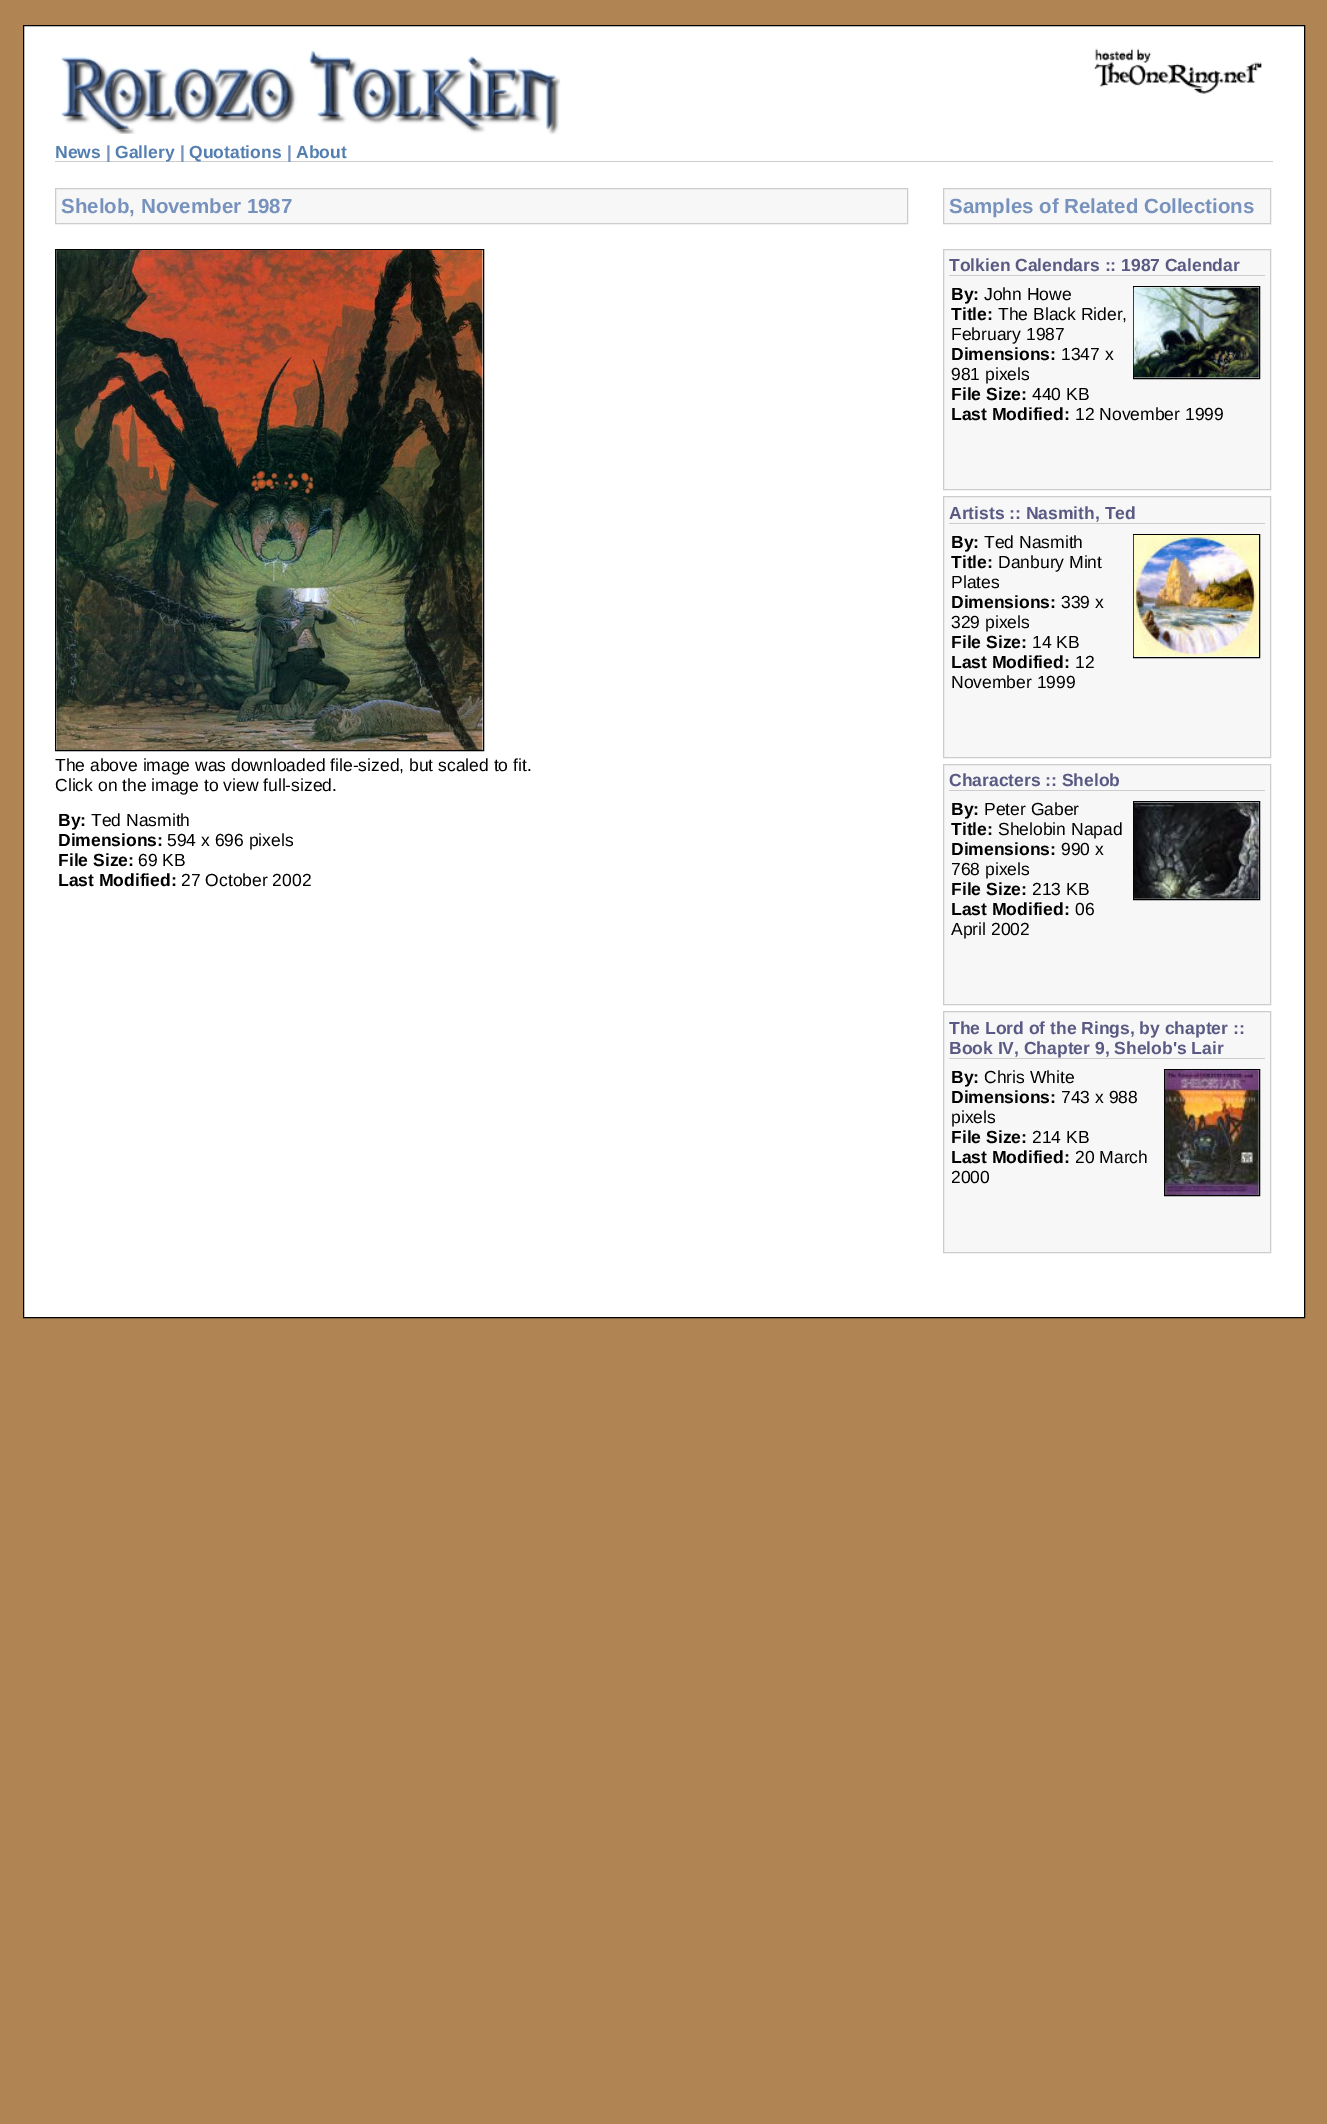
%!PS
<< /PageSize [1327 2124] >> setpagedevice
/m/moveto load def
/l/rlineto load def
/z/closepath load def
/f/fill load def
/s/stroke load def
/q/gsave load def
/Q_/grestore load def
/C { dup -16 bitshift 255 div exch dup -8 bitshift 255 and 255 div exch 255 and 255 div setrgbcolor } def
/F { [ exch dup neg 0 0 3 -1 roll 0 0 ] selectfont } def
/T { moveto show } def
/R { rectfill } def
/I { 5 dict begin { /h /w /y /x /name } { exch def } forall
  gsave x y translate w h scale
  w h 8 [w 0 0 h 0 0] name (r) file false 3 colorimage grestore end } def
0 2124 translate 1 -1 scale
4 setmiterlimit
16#B08553 C
0 0 1327 2124 R
16#FFFFFF C
23.5 25.5 m 1281 0 l 0 1292 l -1281 0 l z q f Q_
16#000000 C
s
(1.rgb) 61 50 500 84 I
(2.rgb) 1093 48 169 46 I
16#CCCCCC C
55 161 1218 1 R
/LiberationSans-Bold 17.5 F
16#537EB0 C
(News) 55 158 T
16#7792BC C
(|) 106 158 T
16#537EB0 C
(Gallery) 115 158 T
16#7792BC C
(|) 180 158 T
16#537EB0 C
(Quotations) 189 158 T
16#7792BC C
(|) 287 158 T
16#537EB0 C
(About) 296 158 T
16#F7F7F7 C
55.5 188.5 m 852 0 l 0 35 l -852 0 l z q f Q_
16#CCCCCC C
s
/LiberationSans-Bold 20.5 F
16#7792BC C
(Shelob, November 1987) 61 213 T
16#000000 C
55.5 249.5 428 501 rectstroke
(3.rgb) 56 250 427 500 I
/LiberationSans-Regular 17.5 F
(The above image was downloaded file-sized, but scaled to fit.) 55 771 T
(Click on the image to view full-sized.) 55 791 T
/LiberationSans-Bold 17.5 F
(By:) 58 826 T
/LiberationSans-Regular 17.5 F
(Ted Nasmith) 91 826 T
/LiberationSans-Bold 17.5 F
(Dimensions:) 58 846 T
/LiberationSans-Regular 17.5 F
(594 x 696 pixels) 167 846 T
/LiberationSans-Bold 17.5 F
(File Size:) 58 866 T
/LiberationSans-Regular 17.5 F
(69 KB) 138 866 T
/LiberationSans-Bold 17.5 F
(Last Modified:) 58 886 T
/LiberationSans-Regular 17.5 F
(27 October 2002) 181 886 T
16#F7F7F7 C
943.5 188.5 m 327 0 l 0 35 l -327 0 l z q f Q_
16#CCCCCC C
s
/LiberationSans-Bold 20.5 F
16#7792BC C
(Samples of Related Collections) 949 213 T
16#F7F7F7 C
943.5 249.5 m 327 0 l 0 240 l -327 0 l z q f Q_
16#CCCCCC C
s
949 275 316 1 R
/LiberationSans-Bold 17.5 F
16#595983 C
(Tolkien Calendars :: 1987 Calendar) 949 271 T
16#000000 C
1133.5 286.5 126 92 rectstroke
(4.rgb) 1133 287 126 91 I
(By:) 951 300 T
/LiberationSans-Regular 17.5 F
(John Howe) 984 300 T
/LiberationSans-Bold 17.5 F
(Title:) 951 320 T
/LiberationSans-Regular 17.5 F
(The Black Rider,) 998 320 T
(February 1987) 951 340 T
/LiberationSans-Bold 17.5 F
(Dimensions:) 951 360 T
/LiberationSans-Regular 17.5 F
(1347 x) 1061 360 T
(981 pixels) 951 380 T
/LiberationSans-Bold 17.5 F
(File Size:) 951 400 T
/LiberationSans-Regular 17.5 F
(440 KB) 1032 400 T
/LiberationSans-Bold 17.5 F
(Last Modified:) 951 420 T
/LiberationSans-Regular 17.5 F
(12 November 1999) 1075 420 T
16#F7F7F7 C
943.5 496.5 m 327 0 l 0 261 l -327 0 l z q f Q_
16#CCCCCC C
s
949 523 316 1 R
/LiberationSans-Bold 17.5 F
16#595983 C
(Artists :: Nasmith, Ted) 949 519 T
16#000000 C
(By:) 951 548 T
/LiberationSans-Regular 17.5 F
(Ted Nasmith) 984 548 T
/LiberationSans-Bold 17.5 F
(Title:) 951 568 T
/LiberationSans-Regular 17.5 F
(Danbury Mint) 998 568 T
(Plates) 951 588 T
/LiberationSans-Bold 17.5 F
(Dimensions:) 951 608 T
/LiberationSans-Regular 17.5 F
(339 x) 1061 608 T
(329 pixels) 951 628 T
/LiberationSans-Bold 17.5 F
(File Size:) 951 648 T
/LiberationSans-Regular 17.5 F
(14 KB) 1032 648 T
/LiberationSans-Bold 17.5 F
(Last Modified:) 951 668 T
/LiberationSans-Regular 17.5 F
(12) 1075 668 T
(November 1999) 951 688 T
1133.5 534.5 126 123 rectstroke
(5.rgb) 1133 535 126 122 I
16#F7F7F7 C
943.5 764.5 m 327 0 l 0 240 l -327 0 l z q f Q_
16#CCCCCC C
s
949 790 316 1 R
/LiberationSans-Bold 17.5 F
16#595983 C
(Characters :: Shelob) 949 786 T
16#000000 C
(By:) 951 815 T
/LiberationSans-Regular 17.5 F
(Peter Gaber) 984 815 T
/LiberationSans-Bold 17.5 F
(Title:) 951 835 T
/LiberationSans-Regular 17.5 F
(Shelobin Napad) 998 835 T
/LiberationSans-Bold 17.5 F
(Dimensions:) 951 855 T
/LiberationSans-Regular 17.5 F
(990 x) 1061 855 T
(768 pixels) 951 875 T
/LiberationSans-Bold 17.5 F
(File Size:) 951 895 T
/LiberationSans-Regular 17.5 F
(213 KB) 1032 895 T
/LiberationSans-Bold 17.5 F
(Last Modified:) 951 915 T
/LiberationSans-Regular 17.5 F
(06) 1075 915 T
(April 2002) 951 935 T
1133.5 801.5 126 98 rectstroke
(6.rgb) 1133 802 126 97 I
16#F7F7F7 C
943.5 1011.5 m 327 0 l 0 241 l -327 0 l z q f Q_
16#CCCCCC C
s
949 1058 316 1 R
/LiberationSans-Bold 17.5 F
16#595983 C
(The Lord of the Rings, by chapter ::) 949 1034 T
(Book IV, Chapter 9, Shelob's Lair) 949 1054 T
16#000000 C
(By:) 951 1083 T
/LiberationSans-Regular 17.5 F
(Chris White) 984 1083 T
/LiberationSans-Bold 17.5 F
(Dimensions:) 951 1103 T
/LiberationSans-Regular 17.5 F
(743 x 988) 1061 1103 T
(pixels) 951 1123 T
/LiberationSans-Bold 17.5 F
(File Size:) 951 1143 T
/LiberationSans-Regular 17.5 F
(214 KB) 1032 1143 T
/LiberationSans-Bold 17.5 F
(Last Modified:) 951 1163 T
/LiberationSans-Regular 17.5 F
(20 March) 1075 1163 T
(2000) 951 1183 T
1164.5 1069.5 95 126 rectstroke
(7.rgb) 1165 1070 94 125 I
showpage
